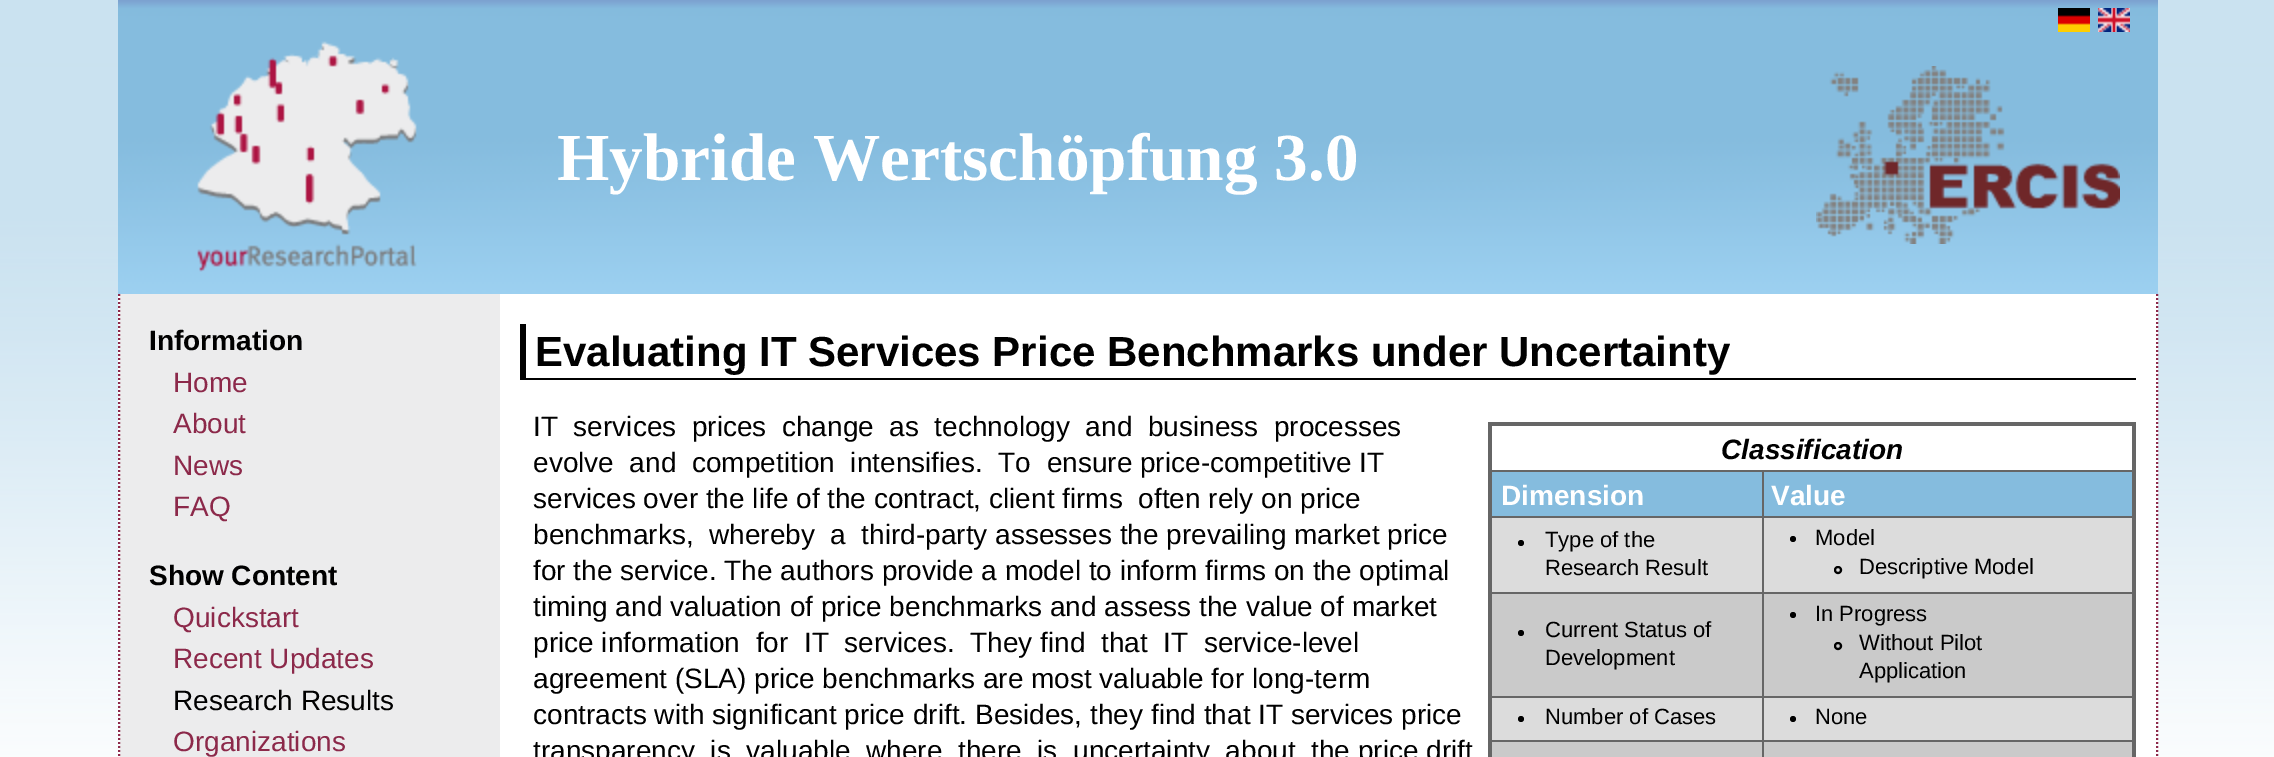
%!PS
<< /PageSize [2274 757] >> setpagedevice
/m/moveto load def
/l/rlineto load def
/f/fill load def
/s/stroke load def
/w/setlinewidth load def
/C { dup -16 bitshift 255 div exch dup -8 bitshift 255 and 255 div exch 255 and 255 div setrgbcolor } def
/F { [ exch dup neg 0 0 3 -1 roll 0 0 ] selectfont } def
/T { moveto show } def
/R { rectfill } def
/O { newpath 0 360 arc closepath } def
/I { 5 dict begin { /h /w /y /x /name } { exch def } forall
  gsave x y translate w h scale
  w h 8 [w 0 0 h 0 0] name (r) file false 3 colorimage grestore end } def
0 757 translate 1 -1 scale
4 setmiterlimit
16#FFFFFF C
0 0 2274 757 R
(1.rgb) 0 0 2274 757 I
(2.rgb) 118 0 2040 294 I
(3.rgb) 2058 8 32 24 I
(4.rgb) 2098 8 32 24 I
(5.rgb) 197 41 220 231 I
/LiberationSerif-Bold 67.25 F
(Hybride Wertschöpfung 3.0) 557 180 T
(6.rgb) 1816 66 304 178 I
118 294 2040 463 R
16#ECECED C
120 294 380 463 R
16#8C294A C
2 w
[2 2] 0 setdash
2157 294 m 0 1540 l s
119 294 m 0 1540 l s
/LiberationSans-Bold 28 F
16#000000 C
(Information) 149 350 T
/LiberationSans-Regular 28 F
16#8C294A C
(Home) 173 392 T
(About) 173 433 T
(News) 173 475 T
(FAQ) 173 516 T
/LiberationSans-Bold 28 F
16#000000 C
(Show Content) 149 585 T
/LiberationSans-Regular 28 F
16#8C294A C
(Quickstart) 173 627 T
(Recent Updates) 173 668 T
16#000000 C
(Research Results) 173 710 T
16#8C294A C
(Organizations) 173 751 T
16#000000 C
520 378 1616 2 R
520 324 6 56 R
/LiberationSans-Bold 42 F
(Evaluating IT Services Price Benchmarks under Uncertainty) 535 366 T
/LiberationSans-Regular 28 F
(IT  services  prices  change  as  technology  and  business  processes) 533 436 T
(evolve  and  competition  intensifies.  To  ensure price-competitive IT) 533 472 T
(services over the life of the contract, client firms  often rely on price) 533 508 T
(benchmarks,  whereby  a  third-party assesses the prevailing market price) 533 544 T
(for the service. The authors provide a model to inform firms on the optimal) 533 580 T
(timing and valuation of price benchmarks and assess the value of market) 533 616 T
(price information  for  IT  services.  They find  that  IT  service-level) 533 652 T
(agreement \(SLA\) price benchmarks are most valuable for long-term) 533 688 T
(contracts with significant price drift. Besides, they find that IT services price) 533 724 T
(transparency  is  valuable  where  there  is  uncertainty  about  the price drift) 533 760 T
16#666666 C
1488 422 648 4 R
1762 470 372 2 R
1762 516 372 2 R
1762 592 372 2 R
1762 696 372 2 R
1762 740 372 2 R
2132 422 4 335 R
16#DCDCDC C
1492 518 640 74 R
16#CACACA C
1492 594 640 102 R
16#DCDCDC C
1492 698 640 42 R
16#CACACA C
1492 742 640 15 R
16#666666 C
1762 740 2 17 R
1490 740 274 2 R
1762 696 2 46 R
1490 696 274 2 R
1762 592 2 106 R
1490 592 274 2 R
1762 516 2 78 R
1490 516 274 2 R
1762 470 2 48 R
1490 470 274 2 R
1488 422 4 335 R
/LiberationSans-BoldItalic 28 F
16#000000 C
(Classification) 1721 459 T
16#85BCDE C
1492 472 270 44 R
/LiberationSans-Bold 28 F
16#FFFFFF C
(Dimension) 1501 505 T
16#85BCDE C
1764 472 368 44 R
16#FFFFFF C
(Value) 1771 505 T
16#000000 C
1521 543 3 O f
/LiberationSans-Regular 22 F
(Type of the) 1545 547 T
(Research Result) 1545 575 T
1793 539 3 O f
(Model) 1815 545 T
[] 0 setdash
1838 570 3 O s
(Descriptive Model) 1859 574 T
1521 633 3 O f
(Current Status of) 1545 637 T
(Development) 1545 665 T
1793 615 3 O f
(In Progress) 1815 621 T
1838 646 3 O s
(Without Pilot) 1859 650 T
(Application) 1859 678 T
1521 719 3 O f
(Number of Cases) 1545 724 T
1793 719 3 O f
(None) 1815 724 T
showpage
